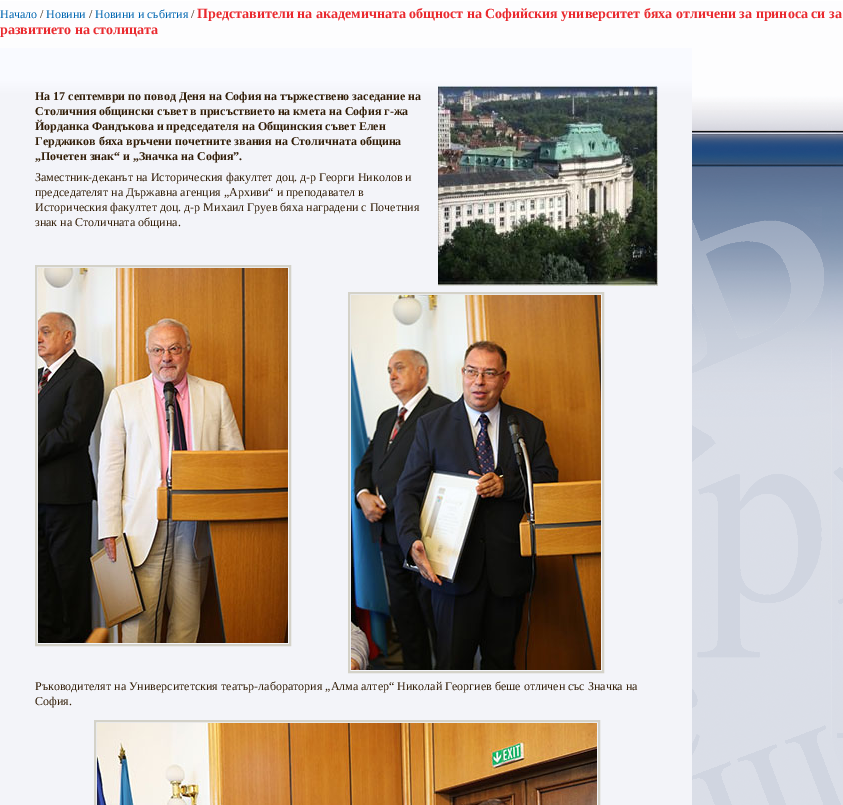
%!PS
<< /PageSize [843 805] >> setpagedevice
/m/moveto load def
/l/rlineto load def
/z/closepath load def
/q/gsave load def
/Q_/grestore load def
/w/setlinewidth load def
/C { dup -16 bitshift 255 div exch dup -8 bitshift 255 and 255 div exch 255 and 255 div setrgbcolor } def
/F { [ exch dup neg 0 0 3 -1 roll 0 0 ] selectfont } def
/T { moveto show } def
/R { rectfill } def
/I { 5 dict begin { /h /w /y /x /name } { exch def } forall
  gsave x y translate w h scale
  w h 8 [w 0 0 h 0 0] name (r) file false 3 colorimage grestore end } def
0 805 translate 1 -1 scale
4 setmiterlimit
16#FFFFFF C
0 0 843 805 R
(1.rgb) 0 0 843 805 I
/LiberationSerif-Regular 12 F
16#0066B1 C
(Начало) 0 18 T
16#331F09 C
(/) 40 18 T
16#0066B1 C
(Новини) 46 18 T
16#331F09 C
(/) 89 18 T
16#0066B1 C
(Новини и събития) 95 18 T
16#331F09 C
(/) 191 18 T
/LiberationSerif-Bold 14 F
16#EA2A2F C
(Представители на академичната общност на Софийския университет бяха отличени за приноса си за) 197 18 T
(развитието на столицата) 0 34 T
q 0 48 m 692 0 l 0 757 l -692 0 l z clip newpath
<< /ShadingType 2 /ColorSpace /DeviceRGB /Coords [346 48 346 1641] /Extend [true true] /Function << /FunctionType 3 /Domain [0 1] /Functions [<< /FunctionType 2 /Domain [0 1] /C0 [.976 .98 1] /C1 [.976 .98 1] /N 1 >> << /FunctionType 2 /Domain [0 1] /C0 [.976 .98 1] /C1 [.953 .957 .976] /N 1 >> << /FunctionType 2 /Domain [0 1] /C0 [.953 .957 .976] /C1 [.953 .957 .976] /N 1 >>] /Bounds [.02 .03] /Encode [0 1 0 1 0 1] >> >> shfill Q_
/LiberationSerif-Bold 12 F
16#331F09 C
(На 17 септември по повод Деня на София на тържествено заседание на) 35 100 T
(Столичния общински съвет в присъствието на кмета на София г-жа) 35 115 T
(Йорданка Фандъкова и председателя на Общинския съвет Елен) 35 130 T
(Герджиков бяха връчени почетните звания на Столичната община) 35 145 T
(„Почетен знак“ и „Значка на София”.) 35 160 T
(2.rgb) 438 86 220 200 I
/LiberationSerif-Regular 12 F
(Заместник-деканът на Историческия факултет доц. д-р Георги Николов и) 35 181 T
(председателят на Държавна агенция „Архиви“ и преподавател в) 35 196 T
(Историческия факултет доц. д-р Михаил Груев бяха наградени с Почетния) 35 211 T
(знак на Столичната община.) 35 226 T
16#D4D2C8 C
2 w
36 266 254 379 rectstroke
(3.rgb) 38 268 250 375 I
349 293 254 379 rectstroke
(4.rgb) 351 295 250 375 I
16#331F09 C
(Ръководителят на Университетския театър-лаборатория „Алма алтер“ Николай Георгиев беше отличен със Значка на) 35 690 T
(София.) 35 705 T
16#D4D2C8 C
95 721 504 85 rectstroke
(5.rgb) 97 723 500 82 I
showpage
